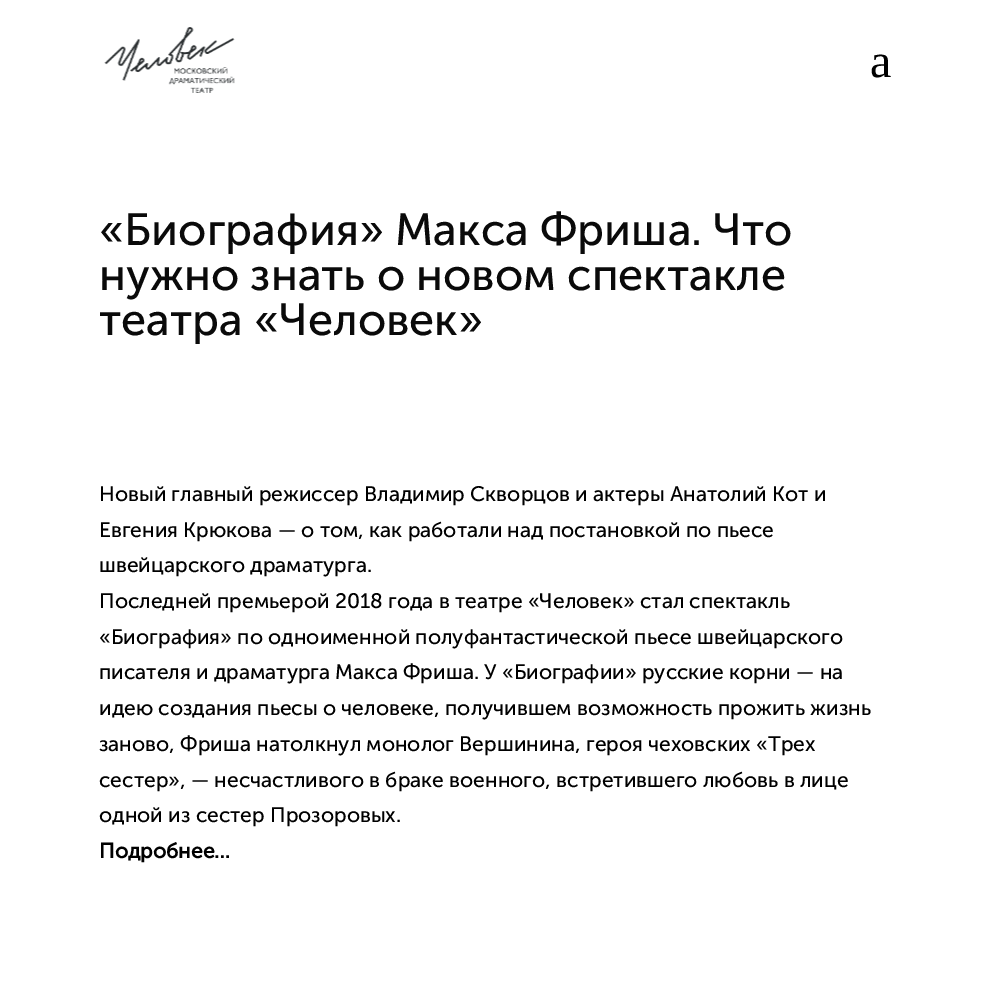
%!PS
<< /PageSize [989 1003] >> setpagedevice
/C { dup -16 bitshift 255 div exch dup -8 bitshift 255 and 255 div exch 255 and 255 div setrgbcolor } def
/F { [ exch dup neg 0 0 3 -1 roll 0 0 ] selectfont } def
/T { moveto show } def
/R { rectfill } def
/I { 5 dict begin { /h /w /y /x /name } { exch def } forall
  gsave x y translate w h scale
  w h 8 [w 0 0 h 0 0] name (r) file false 3 colorimage grestore end } def
0 1003 translate 1 -1 scale
4 setmiterlimit
16#FFFFFF C
0 0 989 1003 R
(1.rgb) 104 27 131 66 I
/LiberationSerif-Regular 48 F
16#000000 C
(a) 870 77 T
/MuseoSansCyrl-Regular 45 F
16#0A0A0A C
(«Биография» Макса Фриша. Что) 99 245 T
(нужно знать о новом спектакле) 99 290 T
(театра «Человек») 99 335 T
/MuseoSansCyrl-Regular 21 F
16#000000 C
(Новый главный режиссер Владимир Скворцов и актеры Анатолий Кот и) 99 501 T
(Евгения Крюкова — о том, как работали над постановкой по пьесе) 99 537 T
(швейцарского драматурга.) 99 572 T
(Последней премьерой 2018 года в театре «Человек» стал спектакль) 99 608 T
(«Биография» по одноименной полуфантастической пьесе швейцарского) 99 644 T
(писателя и драматурга Макса Фриша. У «Биографии» русские корни — на) 99 679 T
(идею создания пьесы о человеке, получившем возможность прожить жизнь) 99 715 T
(заново, Фриша натолкнул монолог Вершинина, героя чеховских «Трех) 99 751 T
(сестер», — несчастливого в браке военного, встретившего любовь в лице) 99 787 T
(одной из сестер Прозоровых.) 99 822 T
/MuseoSansCyrl-Bold 21 F
(Подробнее…) 99 858 T
showpage
